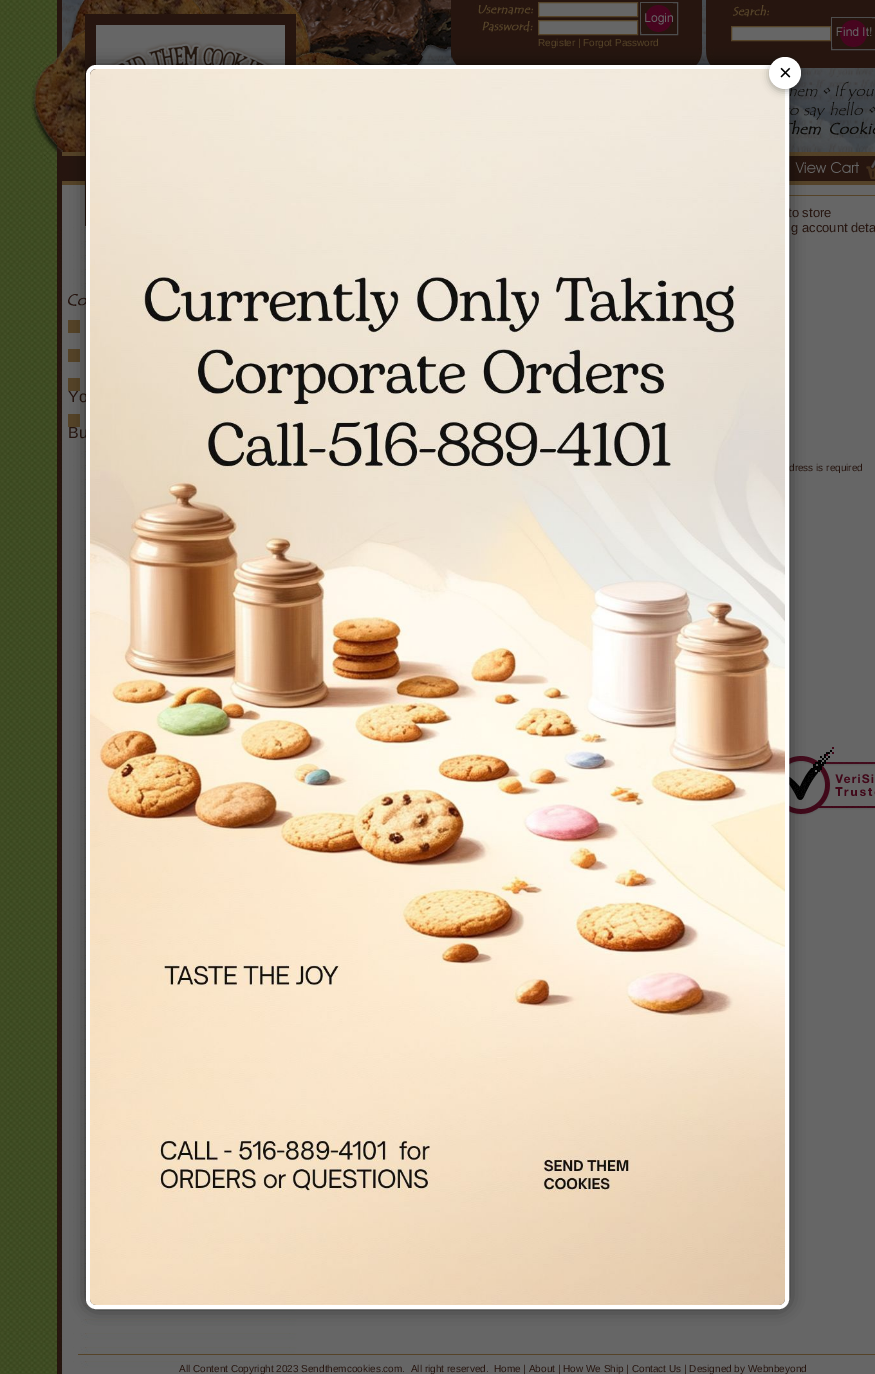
%!PS
<< /PageSize [875 1374] /PageUsesTransparency true >> setpagedevice
/m/moveto load def
/l/rlineto load def
/z/closepath load def
/f/fill load def
/s/stroke load def
/q/gsave load def
/Q_/grestore load def
/w/setlinewidth load def
/C { dup -16 bitshift 255 div exch dup -8 bitshift 255 and 255 div exch 255 and 255 div setrgbcolor } def
/F { [ exch dup neg 0 0 3 -1 roll 0 0 ] selectfont } def
/T { moveto show } def
/R { rectfill } def
/A { dup .setfillconstantalpha .setstrokeconstantalpha } def
/O { newpath 0 360 arc closepath } def
/Q { 5 dict begin { /r /h /w /y /x } { exch def } forall
  x r add y moveto x w add y 2 copy h add r arct x w add y h add x 1 index r arct
  x y h add x y r arct x y 2 copy exch w add exch r arct closepath end } def
/S { 12 dict begin { /a /b /q /h /w /y /x } { exch def } forall gsave /was 0 def
  9 -2 -9 { dup b mul 4 div /e exch def 1 sub .425 mul 2.718 exch exp 1 add a .99 .min exch div /now exch def
    1 1 now sub 1 was sub div sub A /was now def
    w h .min e 2 mul add 0 gt { x e sub y e sub w e 2 mul add h e 2 mul add
      q e add b .6 mul add w h .min 2 div e add .min 0 .max Q fill } if } for grestore end } def
/I { 5 dict begin { /h /w /y /x /name } { exch def } forall
  gsave x y translate w h scale
  w h 8 [w 0 0 h 0 0] name (r) file false 3 colorimage grestore end } def
0 .pushpdf14devicefilter
0 1374 translate 1 -1 scale
4 setmiterlimit
16#FFFFFF C
0 0 875 1374 R
(1.rgb) 0 0 57 1374 I
(2.rgb) 57 0 394 68 I
(3.rgb) 451 0 251 65 I
(4.rgb) 475 4 58 11 I
16#666666 C
538.5 2.5 m 99 0 l 0 14 l -99 0 l z q f Q_
16#554328 C
s
16#4D4D4D C
640.5 2.5 37 32 rectstroke
(5.rgb) 641 3 32 29 I
(6.rgb) 477 21 56 12 I
16#666666 C
538.5 20.5 m 99 0 l 0 14 l -99 0 l z q f Q_
16#554328 C
s
/LiberationSans-Regular 10 F
(Register | Forgot Password) 538 46 T
(7.rgb) 702 0 4 65 I
(8.rgb) 706 0 169 68 I
(9.rgb) 731 2 38 15 I
16#666666 C
731.5 26.5 m 99 0 l 0 14 l -99 0 l z q f Q_
16#554328 C
s
16#4D4D4D C
831.5 17.5 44 32 rectstroke
(10.rgb) 832 18 40 29 I
(11.rgb) 57 68 39 83 I
(12.rgb) 789 68 86 83 I
(13.rgb) 57 151 29 34 I
(14.rgb) 789 151 86 34 I
(15.rgb) 30 53 27 115 I
(16.rgb) 57 185 818 1189 I
(17.rgb) 57 185 29 41 I
16#666666 C
73 311 13 131 R
(18.rgb) 68 292 18 18 I
16#554328 C
68 320 12 13 R
68 349 12 13 R
68 378 12 13 R
/LiberationSans-Regular 16 F
16#26150F C
(Yo) 68 402 T
16#554328 C
68 414 12 13 R
16#26150F C
(Bu) 68 438 T
16#554328 C
789 195 86 1 R
/LiberationSans-Regular 13 F
16#26150F C
(to store) 788 217 T
(g account deta) 791 232 T
/LiberationSans-Regular 10 F
(dress is required) 789 471 T
(19.rgb) 789 747 86 69 I
16#554328 C
78 1354 797 1 R
16#26150F C
(All Content Copyright 2023 Sendthemcookies.com.  All right reserved.) 179 1372 T
(Home | About | How We Ship | Contact Us | Designed by Webnbeyond) 494 1372 T
16#000000 C
86 65 703 1244 10 7.5 .5 S
16#FFFFFF C
4 w
88 67 699 1240 8 Q s
(20.rgb) 90 69 695 1236 I
16#000000 C
769 59 32 32 16 4 .3 S
16#FFFFFF C
785 73 16 O f
/LiberationSans-Regular 22 F
16#000000 C
(×) 779 80 T
.poppdf14devicefilter showpage
